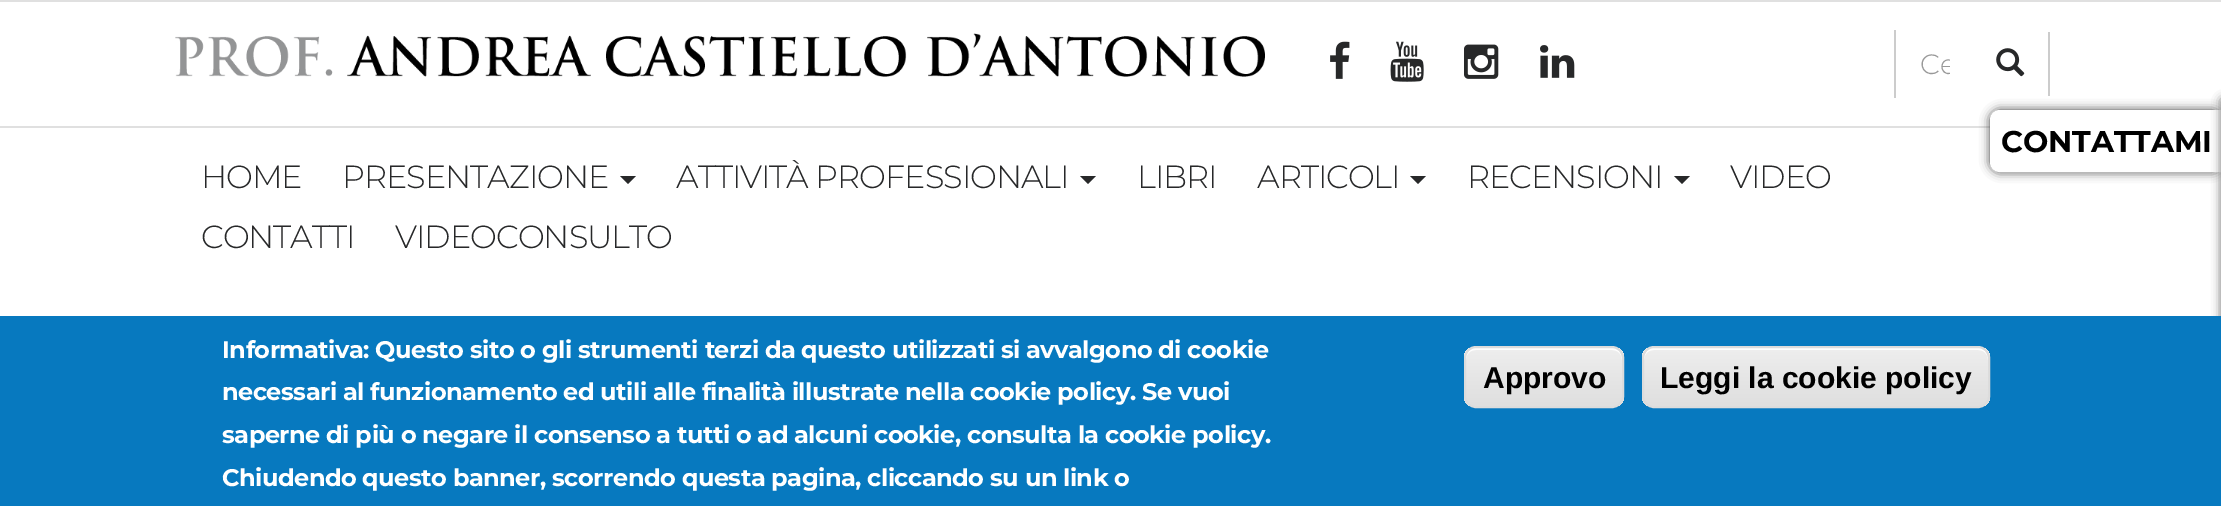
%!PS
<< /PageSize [2221 506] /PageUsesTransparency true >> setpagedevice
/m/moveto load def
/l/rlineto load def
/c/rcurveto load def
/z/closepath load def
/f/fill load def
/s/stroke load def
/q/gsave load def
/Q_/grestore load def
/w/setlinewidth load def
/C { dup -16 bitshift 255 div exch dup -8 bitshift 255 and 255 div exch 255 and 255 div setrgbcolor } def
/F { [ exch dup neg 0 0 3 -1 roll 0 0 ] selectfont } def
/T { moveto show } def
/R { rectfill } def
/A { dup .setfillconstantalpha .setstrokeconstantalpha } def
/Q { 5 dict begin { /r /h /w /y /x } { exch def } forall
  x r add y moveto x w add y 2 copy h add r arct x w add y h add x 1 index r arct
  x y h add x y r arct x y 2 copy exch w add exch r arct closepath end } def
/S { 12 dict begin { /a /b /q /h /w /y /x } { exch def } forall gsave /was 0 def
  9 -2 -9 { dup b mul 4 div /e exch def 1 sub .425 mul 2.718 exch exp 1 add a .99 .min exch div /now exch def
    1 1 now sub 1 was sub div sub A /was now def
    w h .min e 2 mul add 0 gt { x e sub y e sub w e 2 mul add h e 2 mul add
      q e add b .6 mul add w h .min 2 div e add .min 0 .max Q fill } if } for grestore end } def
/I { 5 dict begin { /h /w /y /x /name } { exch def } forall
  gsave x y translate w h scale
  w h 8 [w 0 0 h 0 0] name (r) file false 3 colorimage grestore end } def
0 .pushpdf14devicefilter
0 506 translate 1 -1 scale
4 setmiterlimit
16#FFFFFF C
0 0 2221 506 R
16#E0E0E0 C
0 0 2221 2 R
0 126 1990 2 R
(1.rgb) 175 33 1090 44 I
(2.rgb) 1330 41 20 38 I
(3.rgb) 1390 41 34 41 I
(4.rgb) 1464 44 35 35 I
(5.rgb) 1540 45 35 33 I
16#CCCCCC C
1894 30 2 68 R
q
1920 46 30 36 rectclip
/Montserrat-Light 28 F
16#999999 C
(Ce) 1920 74 T
Q_
2048 32 2 64 R
(6.rgb) 1996 48 29 29 I
16#3C3C3C C
1990 110 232 62 10 5 1 S
16#FFFFFF C
2000 115 m 217 0 l 0 52 l -217 0 l -3 0 -5 -2 -5 -5 c 0 -42 l 0 -3 2 -5 5 -5 c z q f Q_
10 w
s
/Montserrat-Bold 30 F
16#000000 C
(CONTATTAMI) 2001 152 T
16#3C3C3C C
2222 100 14 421 0 5 1 S
/Montserrat-Light 32 F
16#272829 C
201 188 m -1 0 (HOME) ashow
342 188 m -1 0 (PRESENTAZIONE) ashow
620 176 m 16 0 l -8 8 l z f
676 188 m -1 0 (ATTIVITÀ PROFESSIONALI) ashow
1080 176 m 16 0 l -8 8 l z f
1137 188 m -1 0 (LIBRI) ashow
1257 188 m -1 0 (ARTICOLI) ashow
1410 176 m 16 0 l -8 8 l z f
1467 188 m -1 0 (RECENSIONI) ashow
1674 176 m 16 0 l -8 8 l z f
1730 188 m -1 0 (VIDEO) ashow
201 248 m -1 0 (CONTATTI) ashow
395 248 m -1 0 (VIDEOCONSULTO) ashow
16#0779BF C
0 316 2221 190 R
/Montserrat-Bold 24 F
16#FFFFFF C
222 358 m -.48 0 (Informativa: Questo sito o gli strumenti terzi da questo utilizzati si avvalgono di cookie) ashow
222 400 m -.48 0 (necessari al funzionamento ed utili alle finalità illustrate nella cookie policy. Se vuoi) ashow
222 443 m -.48 0 (saperne di più o negare il consenso a tutti o ad alcuni cookie, consulta la cookie policy.) ashow
222 486 m -.48 0 (Chiudendo questo banner, scorrendo questa pagina, cliccando su un link o) ashow
q
1464 346 160 62 12 Q clip newpath
q 1464 348 m 160 0 l 0 58 l -160 0 l z clip newpath
<< /ShadingType 2 /ColorSpace /DeviceRGB /Coords [1544 348 1544 406] /Extend [true true] /Function << /FunctionType 3 /Domain [0 1] /Functions [<< /FunctionType 2 /Domain [0 1] /C0 [.929 .929 .929] /C1 [.929 .929 .929] /N 1 >> << /FunctionType 2 /Domain [0 1] /C0 [.929 .929 .929] /C1 [.875 .875 .875] /N 1 >>] /Bounds [.05] /Encode [0 1 0 1] >> >> shfill Q_
Q_
1476 350 m 136 0 l 6 0 10 4 10 10 c 0 -18 -21 -12 -33 -12 c -90 0 l -12 0 -33 -6 -33 12 c 0 -6 4 -10 10 -10 c z f
16#DCDCDC C
2 w
1465 347 158 60 11 Q s
/LiberationSans-Bold 30 F
16#000000 C
(Approvo) 1483 388 T
q
1642 346 348 62 12 Q clip newpath
q 1642 348 m 348 0 l 0 58 l -348 0 l z clip newpath
<< /ShadingType 2 /ColorSpace /DeviceRGB /Coords [1816 348 1816 406] /Extend [true true] /Function << /FunctionType 3 /Domain [0 1] /Functions [<< /FunctionType 2 /Domain [0 1] /C0 [.929 .929 .929] /C1 [.929 .929 .929] /N 1 >> << /FunctionType 2 /Domain [0 1] /C0 [.929 .929 .929] /C1 [.875 .875 .875] /N 1 >>] /Bounds [.05] /Encode [0 1 0 1] >> >> shfill Q_
Q_
16#FFFFFF C
1654 350 m 324 0 l 6 0 10 4 10 10 c 0 -5 -2 -11 -8 -12 c -326 0 l -7 0 -10 6 -10 12 c 0 -6 4 -10 10 -10 c z f
16#DCDCDC C
1643 347 346 60 11 Q s
16#000000 C
(Leggi la cookie policy) 1660 388 T
.poppdf14devicefilter showpage
